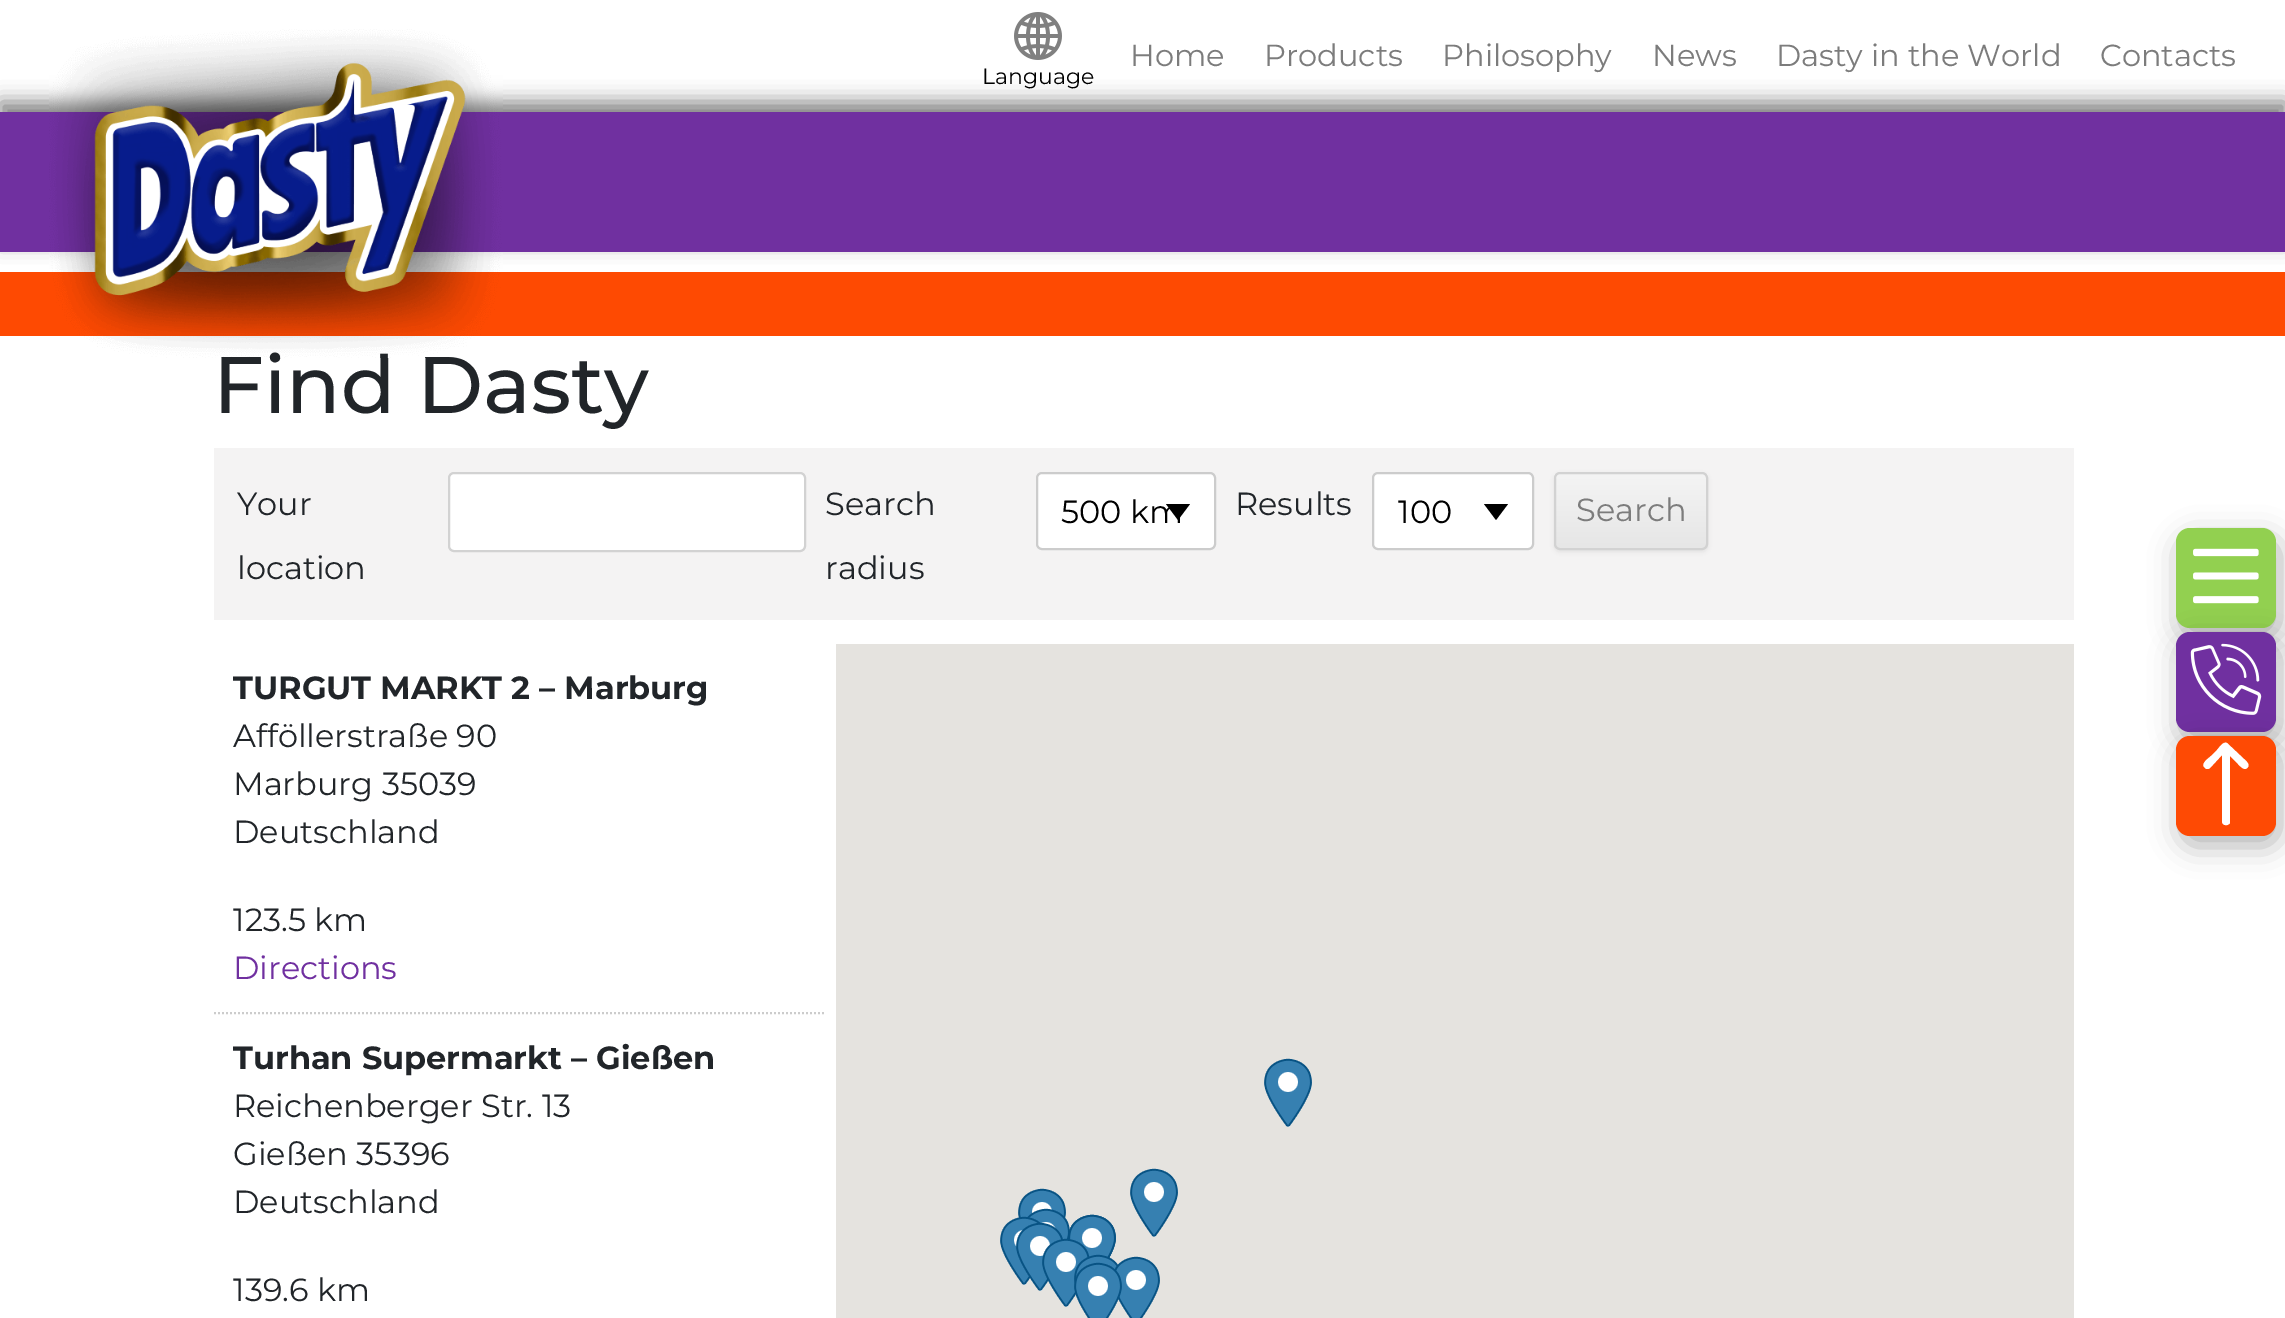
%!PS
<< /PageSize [2285 1318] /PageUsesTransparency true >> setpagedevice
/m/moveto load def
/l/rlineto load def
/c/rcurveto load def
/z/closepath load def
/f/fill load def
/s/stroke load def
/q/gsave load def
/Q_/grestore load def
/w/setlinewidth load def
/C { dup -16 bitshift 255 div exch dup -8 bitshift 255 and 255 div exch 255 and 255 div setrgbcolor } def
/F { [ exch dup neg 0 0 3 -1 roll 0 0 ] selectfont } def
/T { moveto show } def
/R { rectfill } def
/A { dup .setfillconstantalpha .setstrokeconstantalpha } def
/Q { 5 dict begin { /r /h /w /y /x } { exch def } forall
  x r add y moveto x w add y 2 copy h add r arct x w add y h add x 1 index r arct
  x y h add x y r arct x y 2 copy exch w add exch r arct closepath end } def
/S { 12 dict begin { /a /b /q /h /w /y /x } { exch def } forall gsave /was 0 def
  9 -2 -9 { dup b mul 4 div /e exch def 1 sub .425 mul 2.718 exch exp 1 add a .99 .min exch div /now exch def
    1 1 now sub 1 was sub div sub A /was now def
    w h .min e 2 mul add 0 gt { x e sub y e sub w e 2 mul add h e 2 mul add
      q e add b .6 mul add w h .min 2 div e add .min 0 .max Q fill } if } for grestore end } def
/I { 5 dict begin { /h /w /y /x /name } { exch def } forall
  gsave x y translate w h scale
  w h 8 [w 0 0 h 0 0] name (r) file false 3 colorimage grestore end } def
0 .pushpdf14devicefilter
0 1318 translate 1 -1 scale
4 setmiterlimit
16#FFFFFF C
0 0 2285 1318 R
16#FE4A02 C
0 272 2285 64 R
16#000000 C
0 102 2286 140 0 10 .5 S
16#7030A0 C
0 112 2285 140 R
/Montserrat-Medium 80 F
16#212529 C
(Find Dasty) 213 413 T
(1.rgb) 49 29 454 329 I
/Montserrat-Regular 30.5 F
16#7C7C7C C
(Home) 1130 66 T
(Products) 1264 66 T
(Philosophy) 1442 66 T
(News) 1652 66 T
(Dasty in the World) 1776 66 T
(Contacts) 2100 66 T
(2.rgb) 1014 12 48 48 I
/Montserrat-Regular 22 F
16#000000 C
(Language) 982 84 T
16#F4F3F3 C
214 448 1860 172 R
/Montserrat-Regular 32 F
16#212529 C
(Your) 237 515 T
(location) 237 579 T
16#FFFFFF C
449 473 356 78 5 Q q f Q_
16#D2D2D2 C
2 w
s
16#212529 C
(Search) 825 515 T
(radius) 825 579 T
16#FFFFFF C
1037 473 178 76 5 Q q f Q_
16#CCCCCC C
s
16#000000 C
(500 km) 1061 523 T
1166 504 m 24 0 l -12 16 l z f
16#212529 C
(Results) 1235 515 T
16#FFFFFF C
1373 473 160 76 5 Q q f Q_
16#CCCCCC C
s
16#000000 C
(100) 1398 523 T
1484 504 m 24 0 l -12 16 l z f
16#404040 C
1554 474 154 78 6 2 .1 S
q
1554 472 154 78 6 Q clip newpath
q 1554 474 m 154 0 l 0 74 l -154 0 l z clip newpath
<< /ShadingType 2 /ColorSpace /DeviceRGB /Coords [1631 474 1631 548] /Extend [true true] /Function << /FunctionType 2 /Domain [0 1] /C0 [.957 .957 .957] /C1 [.902 .902 .902] /N 1 >> >> shfill Q_
Q_
16#D2D2D2 C
1555 473 152 76 5 Q s
16#7C7C7C C
(Search) 1576 521 T
16#CCCCCC C
[2 2] 0 setdash
214 1013 m 612 0 l s
/Montserrat-Bold 32 F
16#212529 C
(TURGUT MARKT 2 – Marburg) 233 699 T
/Montserrat-Regular 32 F
(Afföllerstraße 90) 233 747 T
(Marburg 35039) 233 795 T
(Deutschland) 233 843 T
(123.5 km) 233 931 T
16#7030A0 C
(Directions) 233 979 T
/Montserrat-Bold 32 F
16#212529 C
(Turhan Supermarkt – Gießen) 233 1069 T
/Montserrat-Regular 32 F
(Reichenberger Str. 13) 233 1117 T
(Gießen 35396) 233 1165 T
(Deutschland) 233 1213 T
(139.6 km) 233 1301 T
16#E5E3DF C
836 644 1238 674 R
(3.rgb) 1264 1058 48 69 I
(4.rgb) 1018 1188 48 30 I
(3.rgb) 1130 1168 48 69 I
(5.rgb) 1027 1208 43 31 I
(6.rgb) 1068 1214 48 44 I
(7.rgb) 1000 1216 41 69 I
(8.rgb) 1068 1214 48 44 I
(9.rgb) 1016 1222 47 69 I
(10.rgb) 1042 1238 48 69 I
(11.rgb) 1074 1254 44 30 I
(12.rgb) 1115 1256 45 62 I
(13.rgb) 1074 1262 48 56 I
16#000000 C
2180 538 100 100 14 15 .3 S
16#92D050 C
2176 528 100 100 14 Q f
(14.rgb) 2193 548 66 56 I
16#000000 C
2180 642 100 100 14 15 .3 S
16#7030A0 C
2176 632 100 100 14 Q f
(15.rgb) 2190 643 72 72 I
16#000000 C
2180 746 100 100 14 15 .3 S
16#FE4A04 C
2176 736 100 100 14 Q f
16#FFFFFF C
2210 768 m 12 -13 l 0 67 l 1 4 6 4 8 1 c 0 -67 l 8 8 l 2 2 7 8 10 3 c 2 -3 -2 -6 -4 -8 c -17 -16 l -4 -2 -8 5 -10 7 c -6 6 l -2 2 -10 7 -7 11 c 2 2 l 2 0 3 0 4 -1 c z f
.poppdf14devicefilter showpage
